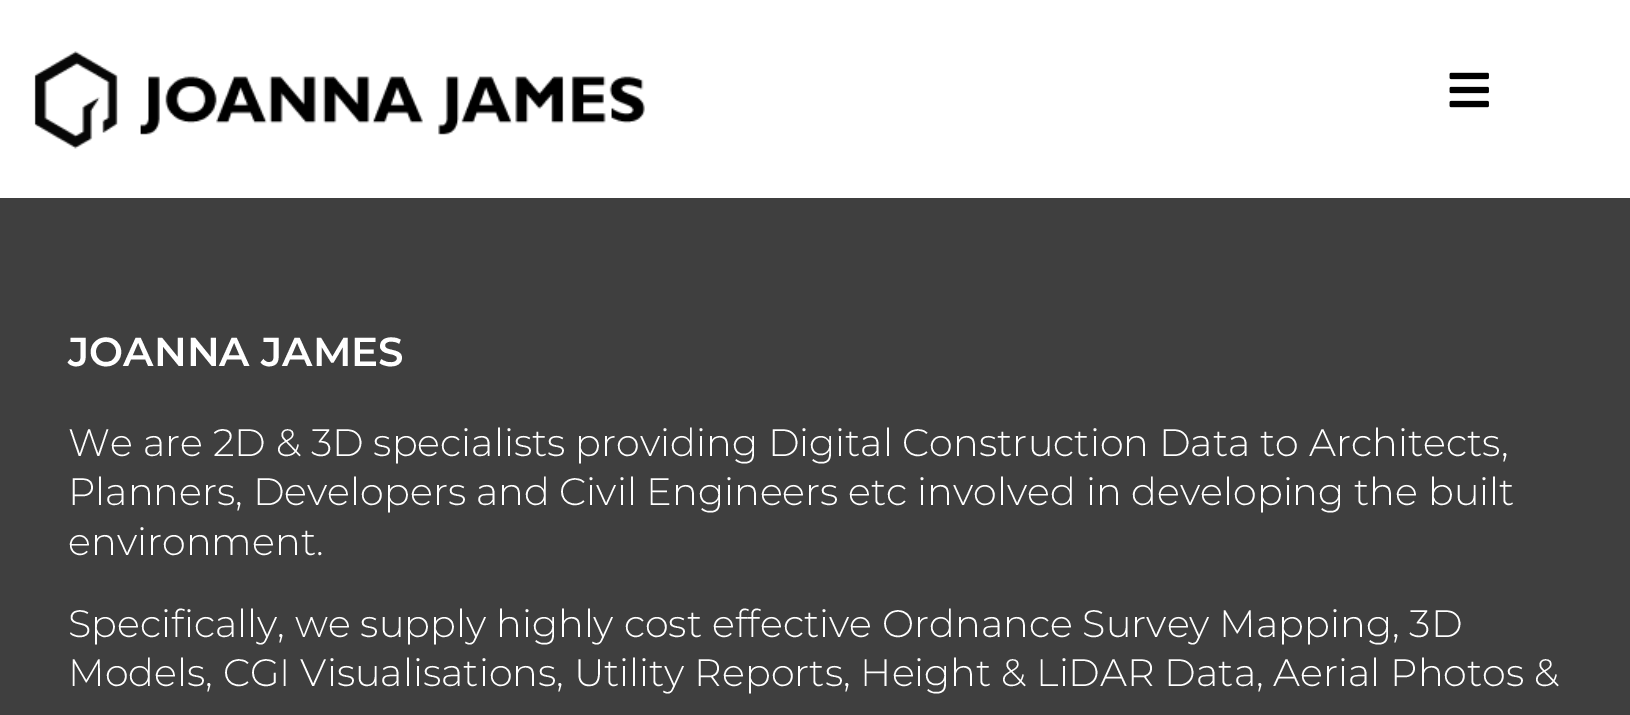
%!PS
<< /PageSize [1630 715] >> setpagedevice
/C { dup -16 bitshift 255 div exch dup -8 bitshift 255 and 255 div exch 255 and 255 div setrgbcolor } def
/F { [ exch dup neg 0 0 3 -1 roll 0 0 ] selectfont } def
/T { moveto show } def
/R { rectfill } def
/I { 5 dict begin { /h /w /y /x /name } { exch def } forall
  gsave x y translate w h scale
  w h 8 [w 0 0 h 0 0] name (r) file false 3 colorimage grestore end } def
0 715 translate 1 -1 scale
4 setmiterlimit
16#FFFFFF C
0 0 1630 715 R
(1.rgb) 34 51 611 98 I
(2.rgb) 1449 72 40 36 I
16#3F3F3F C
0 198 1630 517 R
/Montserrat-SemiBold 40.5 F
16#FFFFFF C
(JOANNA JAMES) 68 366 T
/Montserrat-Light 38.25 F
(We are 2D & 3D specialists providing Digital Construction Data to Architects,) 68 456 T
(Planners, Developers and Civil Engineers etc involved in developing the built) 68 505 T
(environment.) 68 555 T
(Specifically, we supply highly cost effective Ordnance Survey Mapping, 3D) 68 637 T
(Models, CGI Visualisations, Utility Reports, Height & LiDAR Data, Aerial Photos &) 68 686 T
showpage
